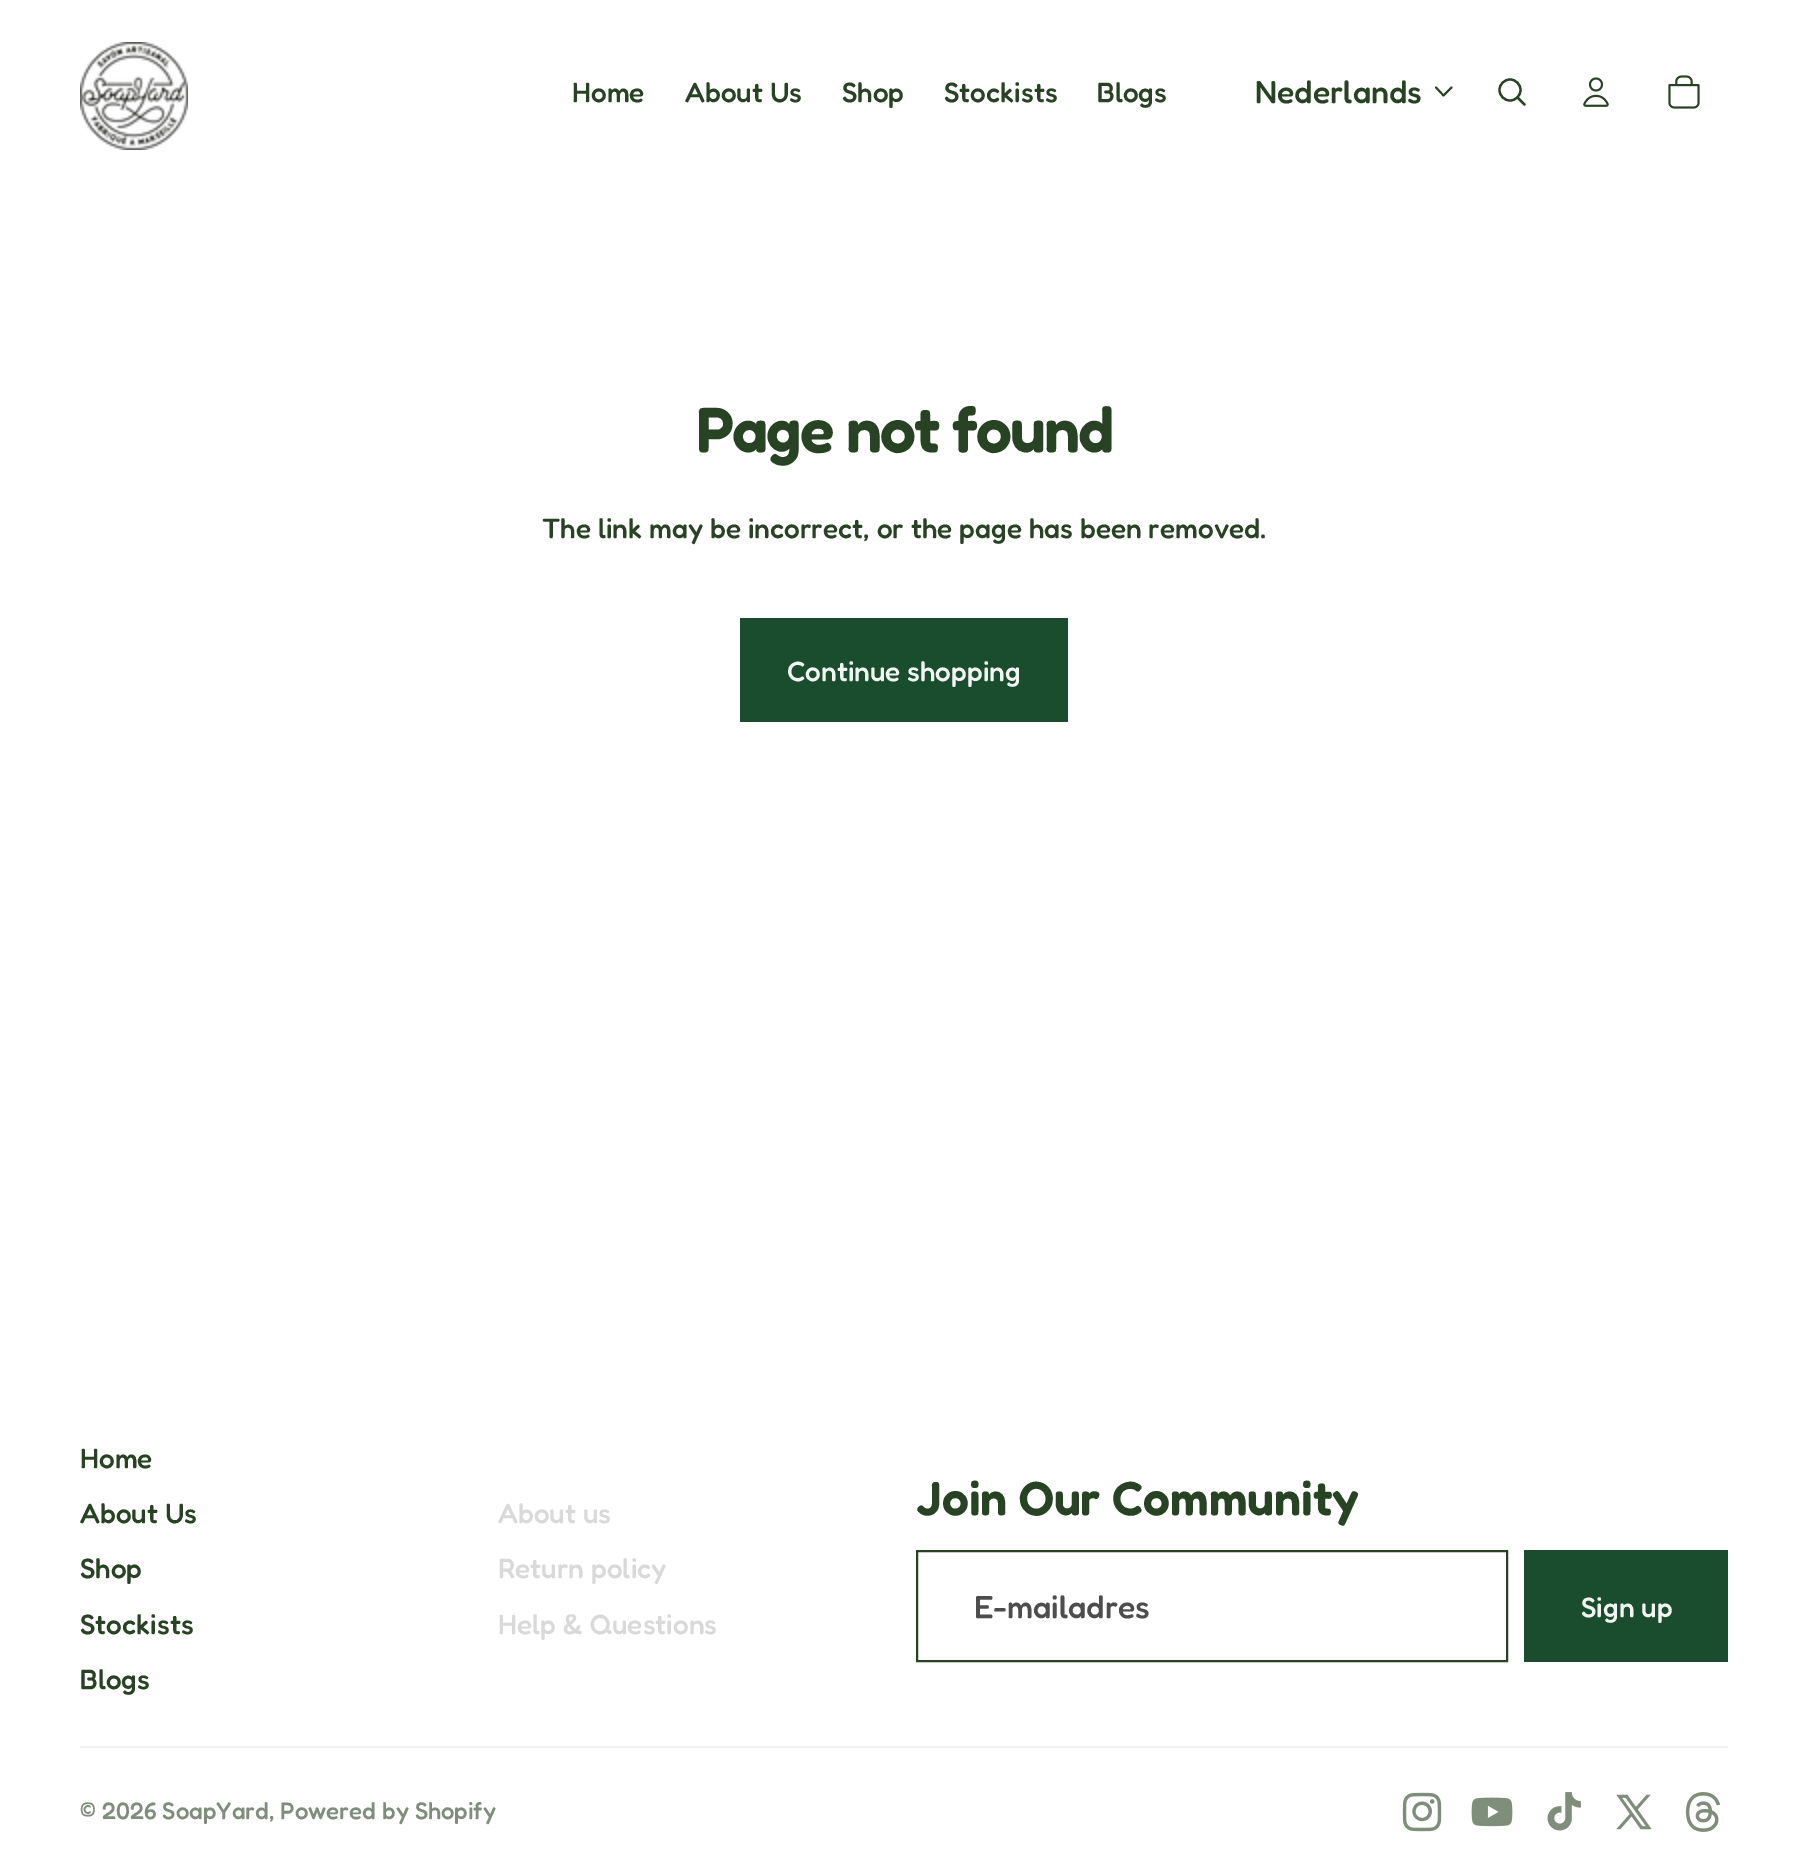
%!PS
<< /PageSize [1808 1876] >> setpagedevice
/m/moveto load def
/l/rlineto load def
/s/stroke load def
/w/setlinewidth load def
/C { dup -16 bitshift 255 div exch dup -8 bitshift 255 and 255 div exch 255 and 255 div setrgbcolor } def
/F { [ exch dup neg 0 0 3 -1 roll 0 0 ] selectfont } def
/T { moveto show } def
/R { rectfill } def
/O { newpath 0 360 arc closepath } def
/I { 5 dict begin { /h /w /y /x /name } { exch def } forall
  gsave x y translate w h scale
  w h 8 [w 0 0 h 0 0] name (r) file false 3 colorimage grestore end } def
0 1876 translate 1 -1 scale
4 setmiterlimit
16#FFFFFF C
0 0 1808 1876 R
(1.rgb) 80 42 108 108 I
/Fredoka-Medium 28 F
16#284323 C
(Home) 572 102 T
(About Us) 685 102 T
(Shop) 842 102 T
(Stockists) 944 102 T
(Blogs) 1097 102 T
/Fredoka-Medium 32 F
(Nederlands) 1255 103 T
1.9 w
1 setlinecap
1 setlinejoin
1451.5 87.5 m -8 8 l -7.5 -8 l s
2.2 w
0 setlinecap
0 setlinejoin
1510 90 10.5 O s
1 setlinecap
1 setlinejoin
1517.5 97.5 m 7 7 l s
(2.rgb) 1583 77 26 30 I
(3.rgb) 1668 75 32 34 I
/Fredoka-SemiBold 64 F
696 452 m -1.9 0 (Page not found) ashow
/Fredoka-Medium 28 F
(The link may be incorrect, or the page has been removed.) 542 538 T
16#1A4D2E C
740 618 328 104 R
16#F1F4F0 C
(Continue shopping) 787 681 T
16#284323 C
(Home) 80 1468 T
(About Us) 80 1523 T
(Shop) 80 1578 T
(Stockists) 80 1634 T
(Blogs) 80 1689 T
16#D9D9D9 C
(About us) 498 1523 T
(Return policy) 498 1578 T
(Help & Questions) 498 1634 T
/Fredoka-SemiBold 48 F
16#284323 C
(Join Our Community) 916 1515 T
2 w
0 setlinecap
0 setlinejoin
917 1551 590 110 rectstroke
/Fredoka-Medium 32 F
16#4D4D4D C
(E-mailadres) 974 1618 T
16#1A4D2E C
1524 1550 204 112 R
/Fredoka-Medium 28 F
16#F1F4F0 C
(Sign up) 1581 1617 T
80 1746 1648 2 R
/Fredoka-Medium 24 F
16#7E8E7B C
(© 2026 SoapYard, Powered by Shopify) 80 1819 T
(4.rgb) 1402 1792 40 40 I
(5.rgb) 1471 1797 42 30 I
(6.rgb) 1547 1792 34 39 I
(7.rgb) 1616 1794 36 36 I
(8.rgb) 1685 1792 36 40 I
showpage
